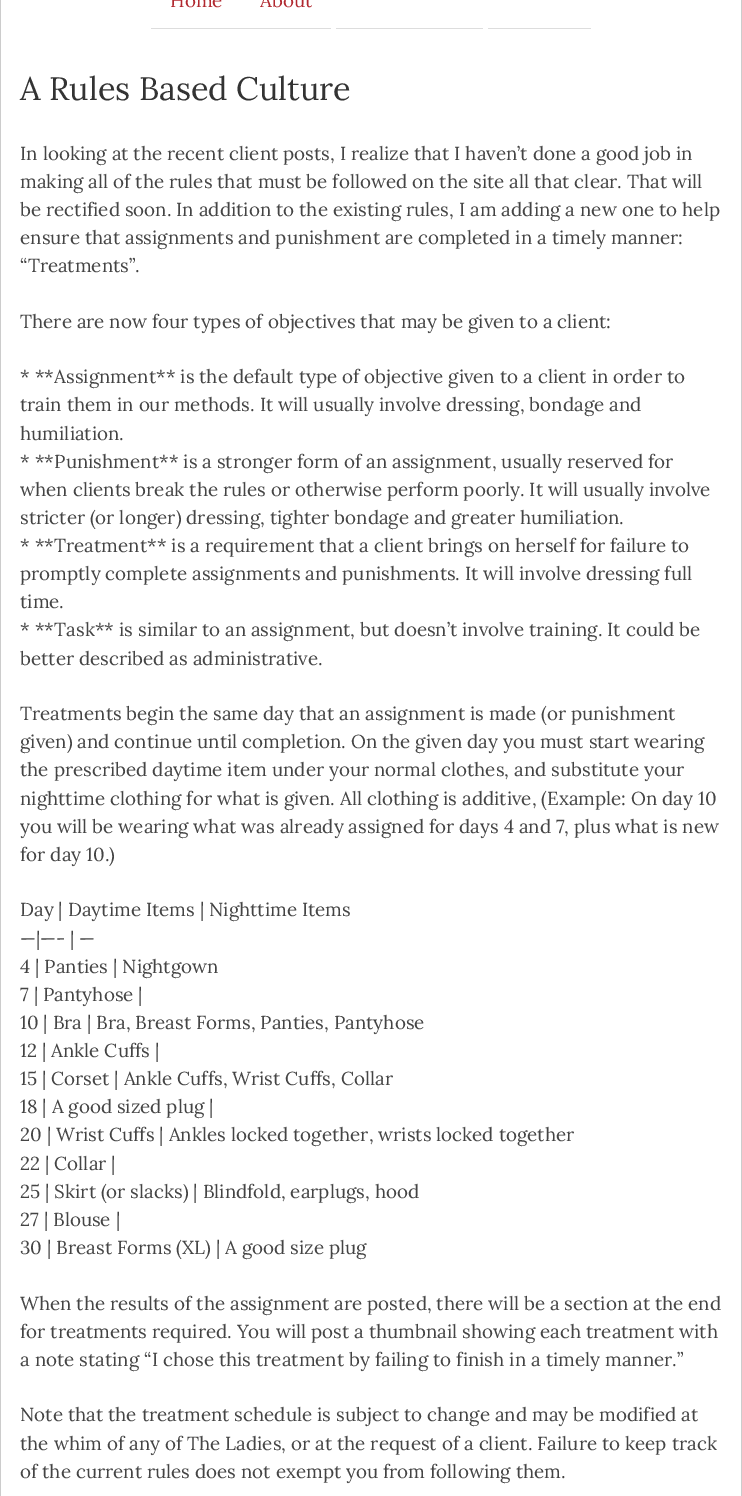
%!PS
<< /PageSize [742 1496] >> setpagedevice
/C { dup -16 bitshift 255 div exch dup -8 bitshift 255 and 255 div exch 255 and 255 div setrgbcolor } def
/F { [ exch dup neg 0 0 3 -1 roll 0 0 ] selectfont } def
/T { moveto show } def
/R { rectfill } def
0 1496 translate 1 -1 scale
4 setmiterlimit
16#FFFFFF C
0 0 742 1496 R
16#CCCCCC C
741 0 1 1496 R
0 0 1 1496 R
16#DDDDDD C
151 28 180 1 R
/Lora-Regular 18.75 F
16#B12930 C
(Home) 170 7 T
(About) 260 7 T
16#DDDDDD C
336 28 147 1 R
488 28 103 1 R
/Lora-Regular 32.5 F
16#333333 C
(A Rules Based Culture) 20 100 T
/Lora-Regular 18.75 F
16#444444 C
(In looking at the recent client posts, I realize that I haven’t done a good job in) 20 160 T
(making all of the rules that must be followed on the site all that clear. That will) 20 188 T
(be rectified soon. In addition to the existing rules, I am adding a new one to help) 20 216 T
(ensure that assignments and punishment are completed in a timely manner:) 20 244 T
(“Treatments”.) 20 272 T
(There are now four types of objectives that may be given to a client:) 20 328 T
(* **Assignment** is the default type of objective given to a client in order to) 20 383 T
(train them in our methods. It will usually involve dressing, bondage and) 20 411 T
(humiliation.) 20 440 T
(* **Punishment** is a stronger form of an assignment, usually reserved for) 20 468 T
(when clients break the rules or otherwise perform poorly. It will usually involve) 20 496 T
(stricter \(or longer\) dressing, tighter bondage and greater humiliation.) 20 524 T
(* **Treatment** is a requirement that a client brings on herself for failure to) 20 552 T
(promptly complete assignments and punishments. It will involve dressing full) 20 580 T
(time.) 20 608 T
(* **Task** is similar to an assignment, but doesn’t involve training. It could be) 20 636 T
(better described as administrative.) 20 665 T
(Treatments begin the same day that an assignment is made \(or punishment) 20 720 T
(given\) and continue until completion. On the given day you must start wearing) 20 748 T
(the prescribed daytime item under your normal clothes, and substitute your) 20 776 T
(nighttime clothing for what is given. All clothing is additive, \(Example: On day 10) 20 805 T
(you will be wearing what was already assigned for days 4 and 7, plus what is new) 20 833 T
(for day 10.\)) 20 861 T
(Day | Daytime Items | Nighttime Items) 20 916 T
(—|—- | —) 20 945 T
(4 | Panties | Nightgown) 20 973 T
(7 | Pantyhose |) 20 1001 T
(10 | Bra | Bra, Breast Forms, Panties, Pantyhose) 20 1029 T
(12 | Ankle Cuffs |) 20 1057 T
(15 | Corset | Ankle Cuffs, Wrist Cuffs, Collar) 20 1085 T
(18 | A good sized plug |) 20 1113 T
(20 | Wrist Cuffs | Ankles locked together, wrists locked together) 20 1141 T
(22 | Collar |) 20 1170 T
(25 | Skirt \(or slacks\) | Blindfold, earplugs, hood) 20 1198 T
(27 | Blouse |) 20 1226 T
(30 | Breast Forms \(XL\) | A good size plug) 20 1254 T
(When the results of the assignment are posted, there will be a section at the end) 20 1310 T
(for treatments required. You will post a thumbnail showing each treatment with) 20 1338 T
(a note stating “I chose this treatment by failing to finish in a timely manner.”) 20 1366 T
(Note that the treatment schedule is subject to change and may be modified at) 20 1421 T
(the whim of any of The Ladies, or at the request of a client. Failure to keep track) 20 1450 T
(of the current rules does not exempt you from following them.) 20 1478 T
showpage
